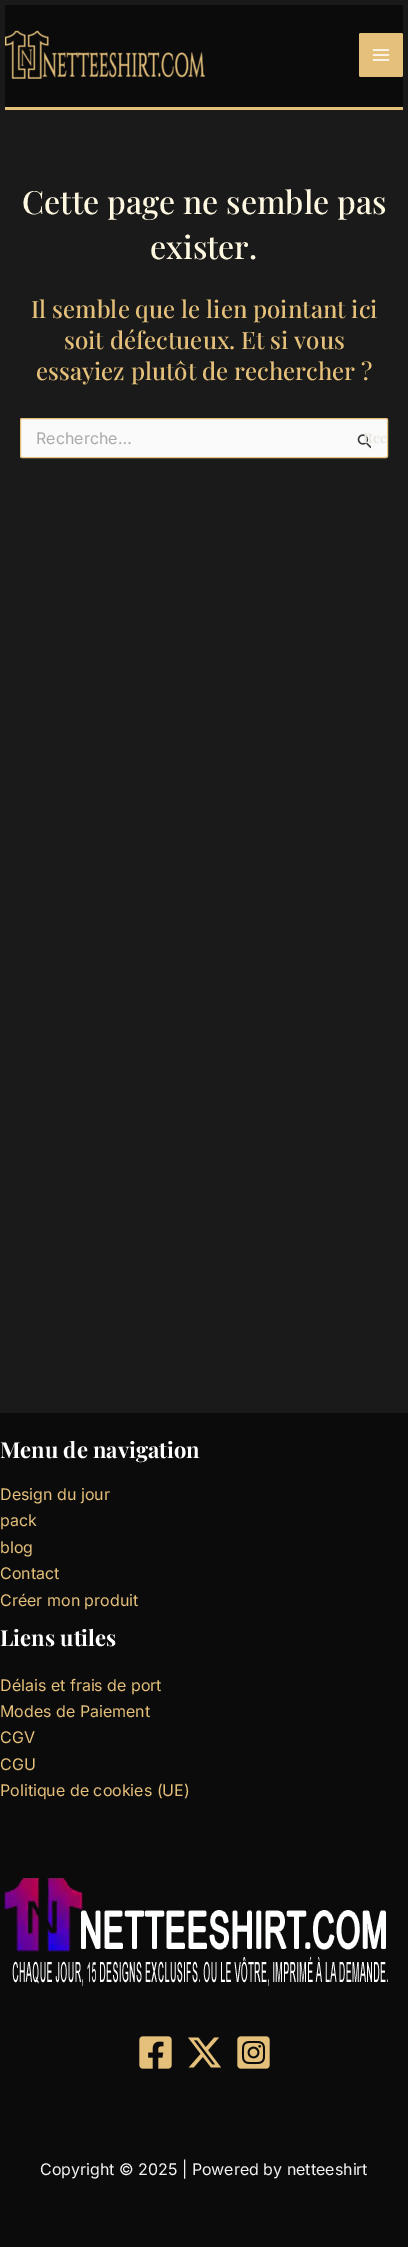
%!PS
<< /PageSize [408 2247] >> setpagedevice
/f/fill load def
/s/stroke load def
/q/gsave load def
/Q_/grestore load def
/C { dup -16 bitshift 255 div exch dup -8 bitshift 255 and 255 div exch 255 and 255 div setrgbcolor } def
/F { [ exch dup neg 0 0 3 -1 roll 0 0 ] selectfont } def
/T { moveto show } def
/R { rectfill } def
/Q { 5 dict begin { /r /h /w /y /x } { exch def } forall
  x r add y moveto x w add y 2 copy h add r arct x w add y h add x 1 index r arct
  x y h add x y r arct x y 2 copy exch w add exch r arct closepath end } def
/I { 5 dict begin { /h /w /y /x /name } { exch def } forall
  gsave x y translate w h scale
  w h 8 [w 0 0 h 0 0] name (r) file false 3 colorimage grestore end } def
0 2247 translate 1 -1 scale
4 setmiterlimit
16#1A1A1A C
0 0 408 2247 R
16#0B0B0B C
5 5 398 102 R
16#E5C07B C
5 107 398 3 R
(1.rgb) 5 30 200 49 I
359 33 44 44 2 Q f
(2.rgb) 372 49 18 12 I
/PlayfairDisplay-Medium 32 F
16#FFF8E1 C
(Cette page ne semble pas) 22 214 T
(exister.) 150 259 T
/PlayfairDisplay-Medium 24 F
16#E5C07B C
(Il semble que le lien pointant ici) 31 318 T
(soit défectueux. Et si vous) 64 349 T
(essayiez plutôt de rechercher ?) 36 380 T
16#FAFAFA C
20.5 418.5 367 39 1.5 Q q f Q_
16#E5C07B C
s
/Inter-Regular 16 F
16#AAAAAA C
(Recherche…) 36 444 T
(3.rgb) 357 434 14 15 I
/PlayfairDisplay-Bold 14 F
16#EAE7E3 C
(Rec) 363 443 T
16#0B0B0B C
0 1413 408 834 R
/PlayfairDisplay-Bold 22 F
16#FFFFFF C
(Menu de navigation) 0 1458 T
/Inter-Regular 16 F
16#E5C07B C
(Design du jour) 0 1500 T
(pack) 0 1526 T
(blog) 0 1553 T
(Contact) 0 1579 T
(Créer mon produit) 0 1606 T
/PlayfairDisplay-Bold 22 F
16#FFFFFF C
(Liens utiles) 0 1646 T
/Inter-Regular 16 F
16#E5C07B C
(Délais et frais de port) 0 1691 T
(Modes de Paiement) 0 1717 T
(CGV) 0 1743 T
(CGU) 0 1770 T
(Politique de cookies \(UE\)) 0 1796 T
(4.rgb) 3 1878 385 108 I
(5.rgb) 139 2036 33 33 I
(6.rgb) 188 2037 34 31 I
(7.rgb) 237 2036 33 33 I
16#F5F5F5 C
(Copyright © 2025 | Powered by netteeshirt) 40 2175 T
showpage
